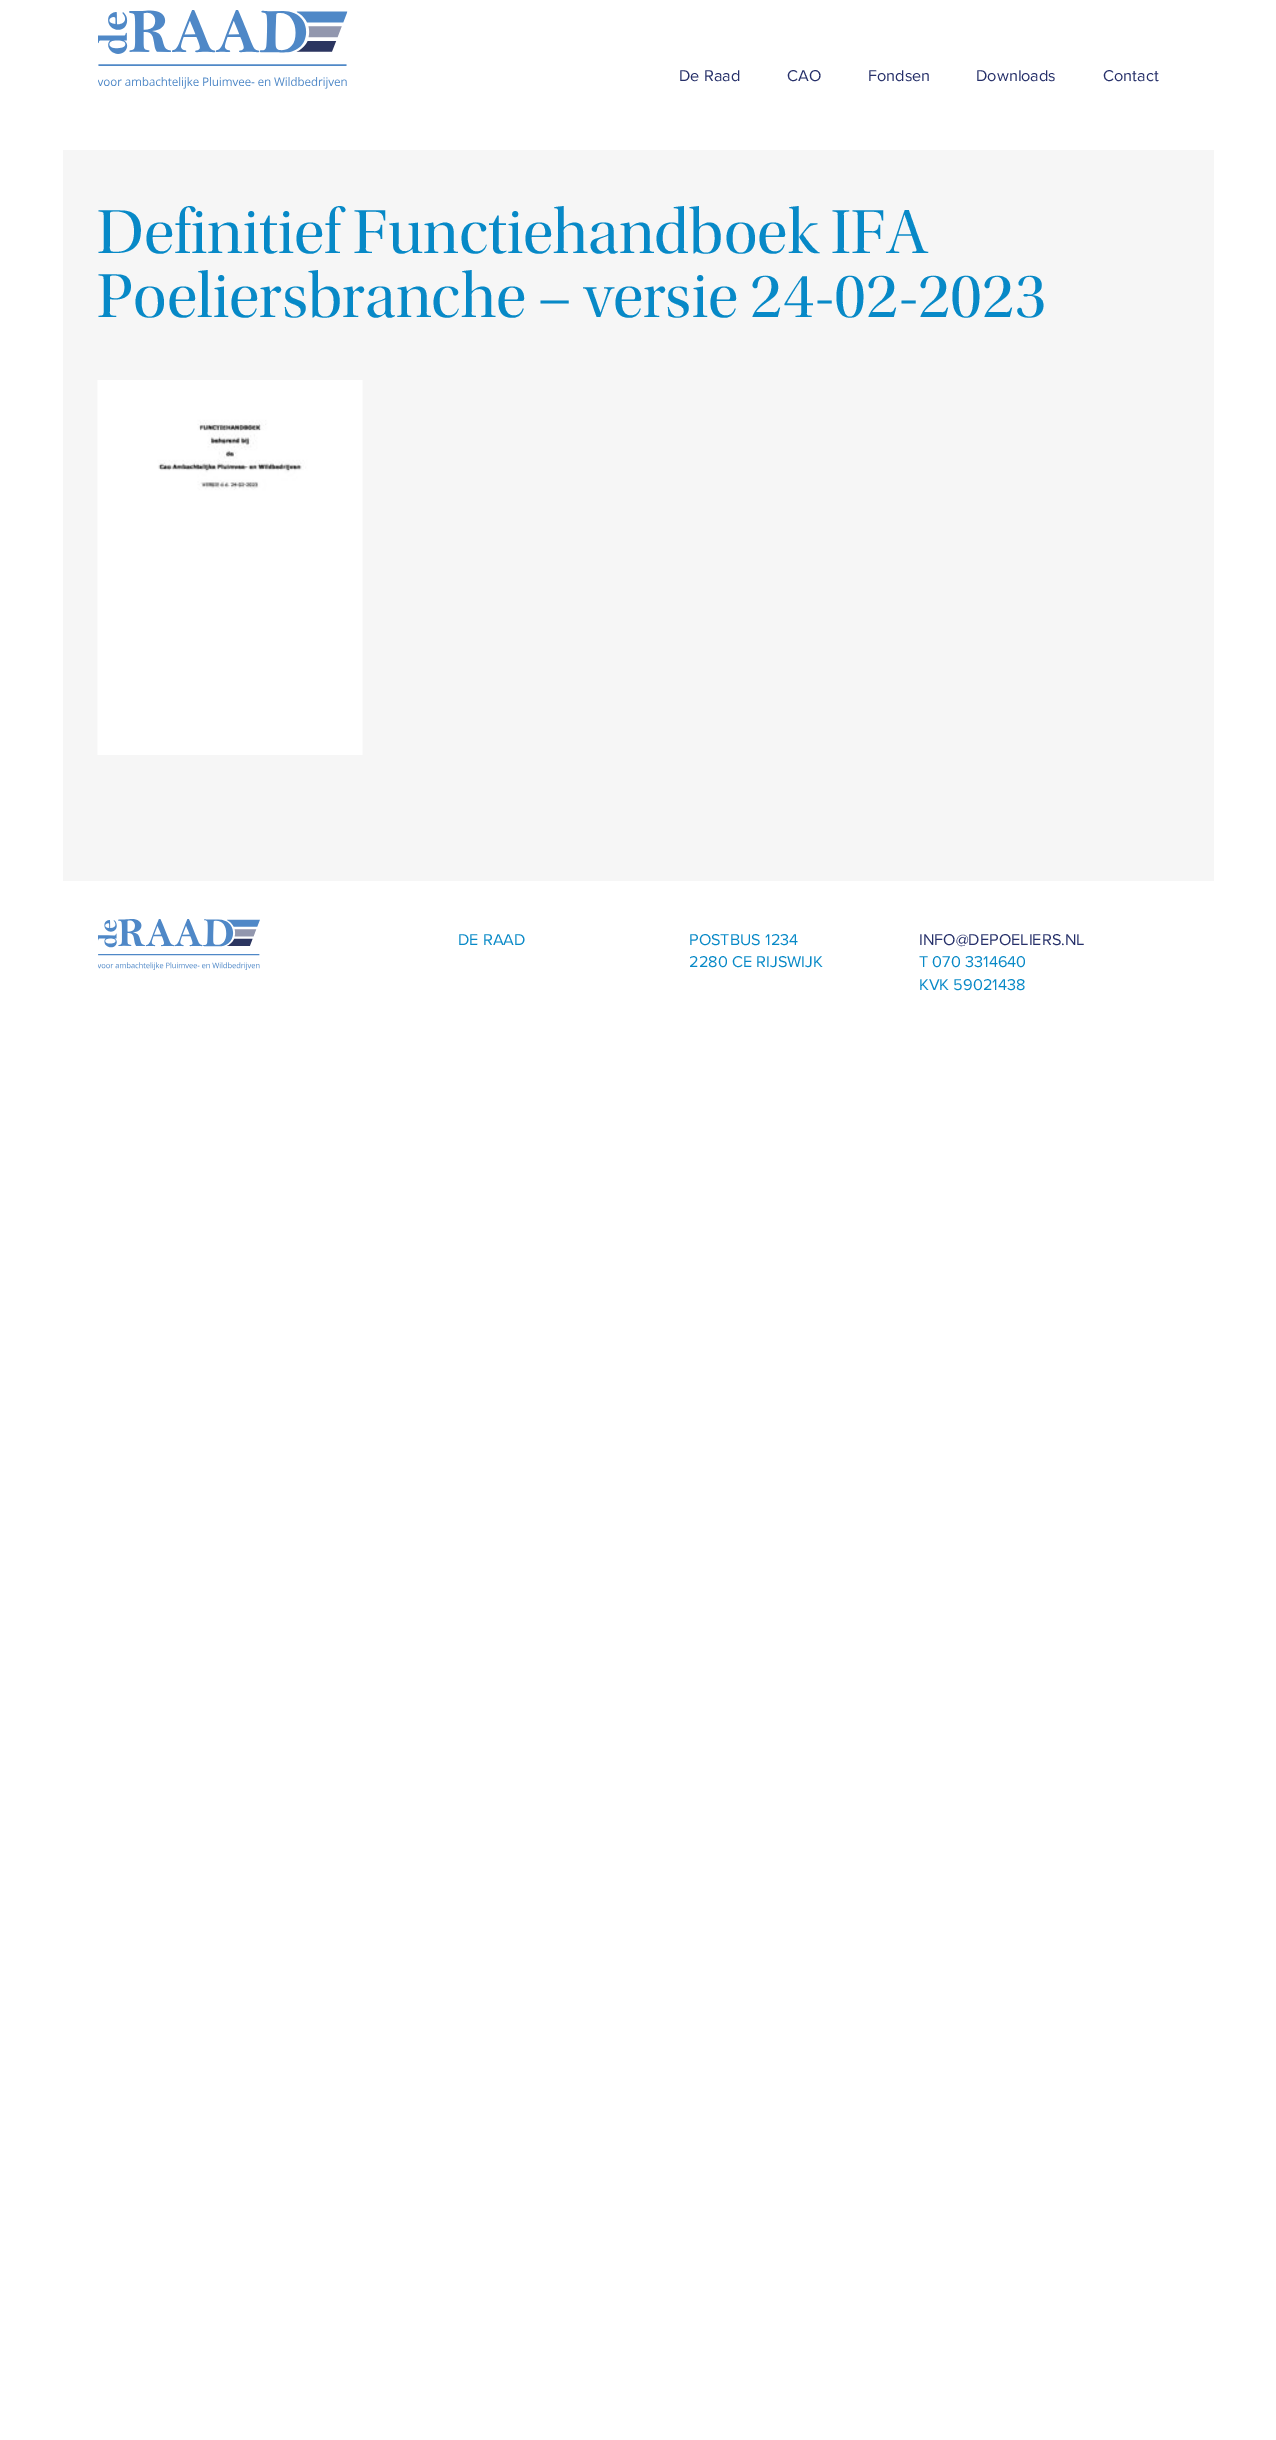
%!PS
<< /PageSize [1276 2440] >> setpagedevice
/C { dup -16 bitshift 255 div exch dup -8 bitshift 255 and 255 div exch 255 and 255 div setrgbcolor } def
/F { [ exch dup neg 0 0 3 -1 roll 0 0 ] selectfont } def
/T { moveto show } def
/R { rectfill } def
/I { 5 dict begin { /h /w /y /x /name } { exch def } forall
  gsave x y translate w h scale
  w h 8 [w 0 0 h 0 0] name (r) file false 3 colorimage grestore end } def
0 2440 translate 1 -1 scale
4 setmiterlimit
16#FFFFFF C
0 0 1276 2440 R
16#F6F6F6 C
63 150 1151 731 R
(1.rgb) 98 10 250 79 I
/ProximaNova-Regular 16.25 F
16#252F69 C
(De Raad) 679 81 T
(CAO) 787 81 T
(Fondsen) 868 81 T
(Downloads) 976 81 T
(Contact) 1103 81 T
/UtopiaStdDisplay-Regular 64.75 F
16#0789C7 C
(Definitief Functiehandboek IFA) 97 253 T
(Poeliersbranche – versie 24-02-2023) 97 317 T
(2.rgb) 97 380 266 375 I
(3.rgb) 98 919 162 51 I
/ProximaNova-Regular 16.25 F
(DE RAAD) 458 945 T
(POSTBUS 1234) 689 945 T
(2280 CE RIJSWIJK) 689 967 T
16#252F69 C
(INFO@DEPOELIERS.NL) 919 945 T
16#0789C7 C
(T 070 3314640) 919 967 T
(KVK 59021438) 919 990 T
showpage
